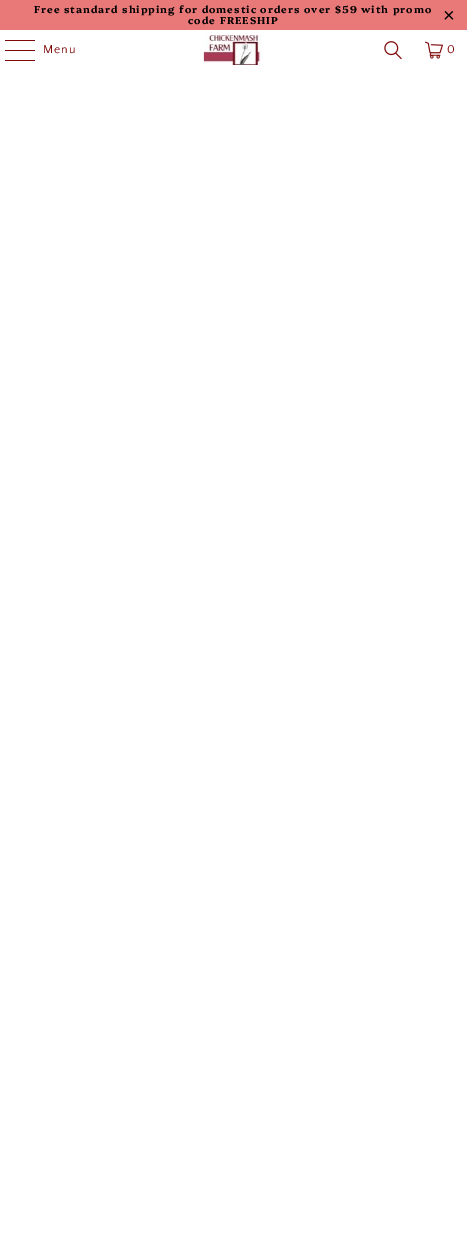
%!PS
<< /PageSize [467 1233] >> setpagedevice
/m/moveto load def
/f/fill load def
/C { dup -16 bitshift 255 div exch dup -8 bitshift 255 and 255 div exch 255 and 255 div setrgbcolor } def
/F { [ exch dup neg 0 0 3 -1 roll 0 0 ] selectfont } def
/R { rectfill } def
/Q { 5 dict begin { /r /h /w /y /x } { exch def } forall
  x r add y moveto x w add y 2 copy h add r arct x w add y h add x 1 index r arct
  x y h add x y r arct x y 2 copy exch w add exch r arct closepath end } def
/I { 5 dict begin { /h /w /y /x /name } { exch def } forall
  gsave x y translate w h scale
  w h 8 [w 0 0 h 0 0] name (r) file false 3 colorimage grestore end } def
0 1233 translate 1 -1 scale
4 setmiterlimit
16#FFFFFF C
0 0 467 1233 R
16#E97979 C
0 0 467 30 R
/Platypi-Bold 10 F
16#000000 C
34 13 m 1 0 (Free standard shipping for domestic orders over $59 with promo) ashow
188 24 m 1 0 (code FREESHIP) ashow
/LiberationSans-Regular 20 F
443 22 m 1 0 (×) ashow
16#7E0909 C
5 40 30 1 .5 Q f
5 50 30 1 .5 Q f
5 60 30 1 .5 Q f
/QuattrocentoSans-Regular 12 F
43 53 m 1 0 (Menu) ashow
(1.rgb) 203 35 59 30 I
(2.rgb) 384 41 18 19 I
(3.rgb) 425 41 18 18 I
447 53 m 1 0 (0) ashow
showpage
